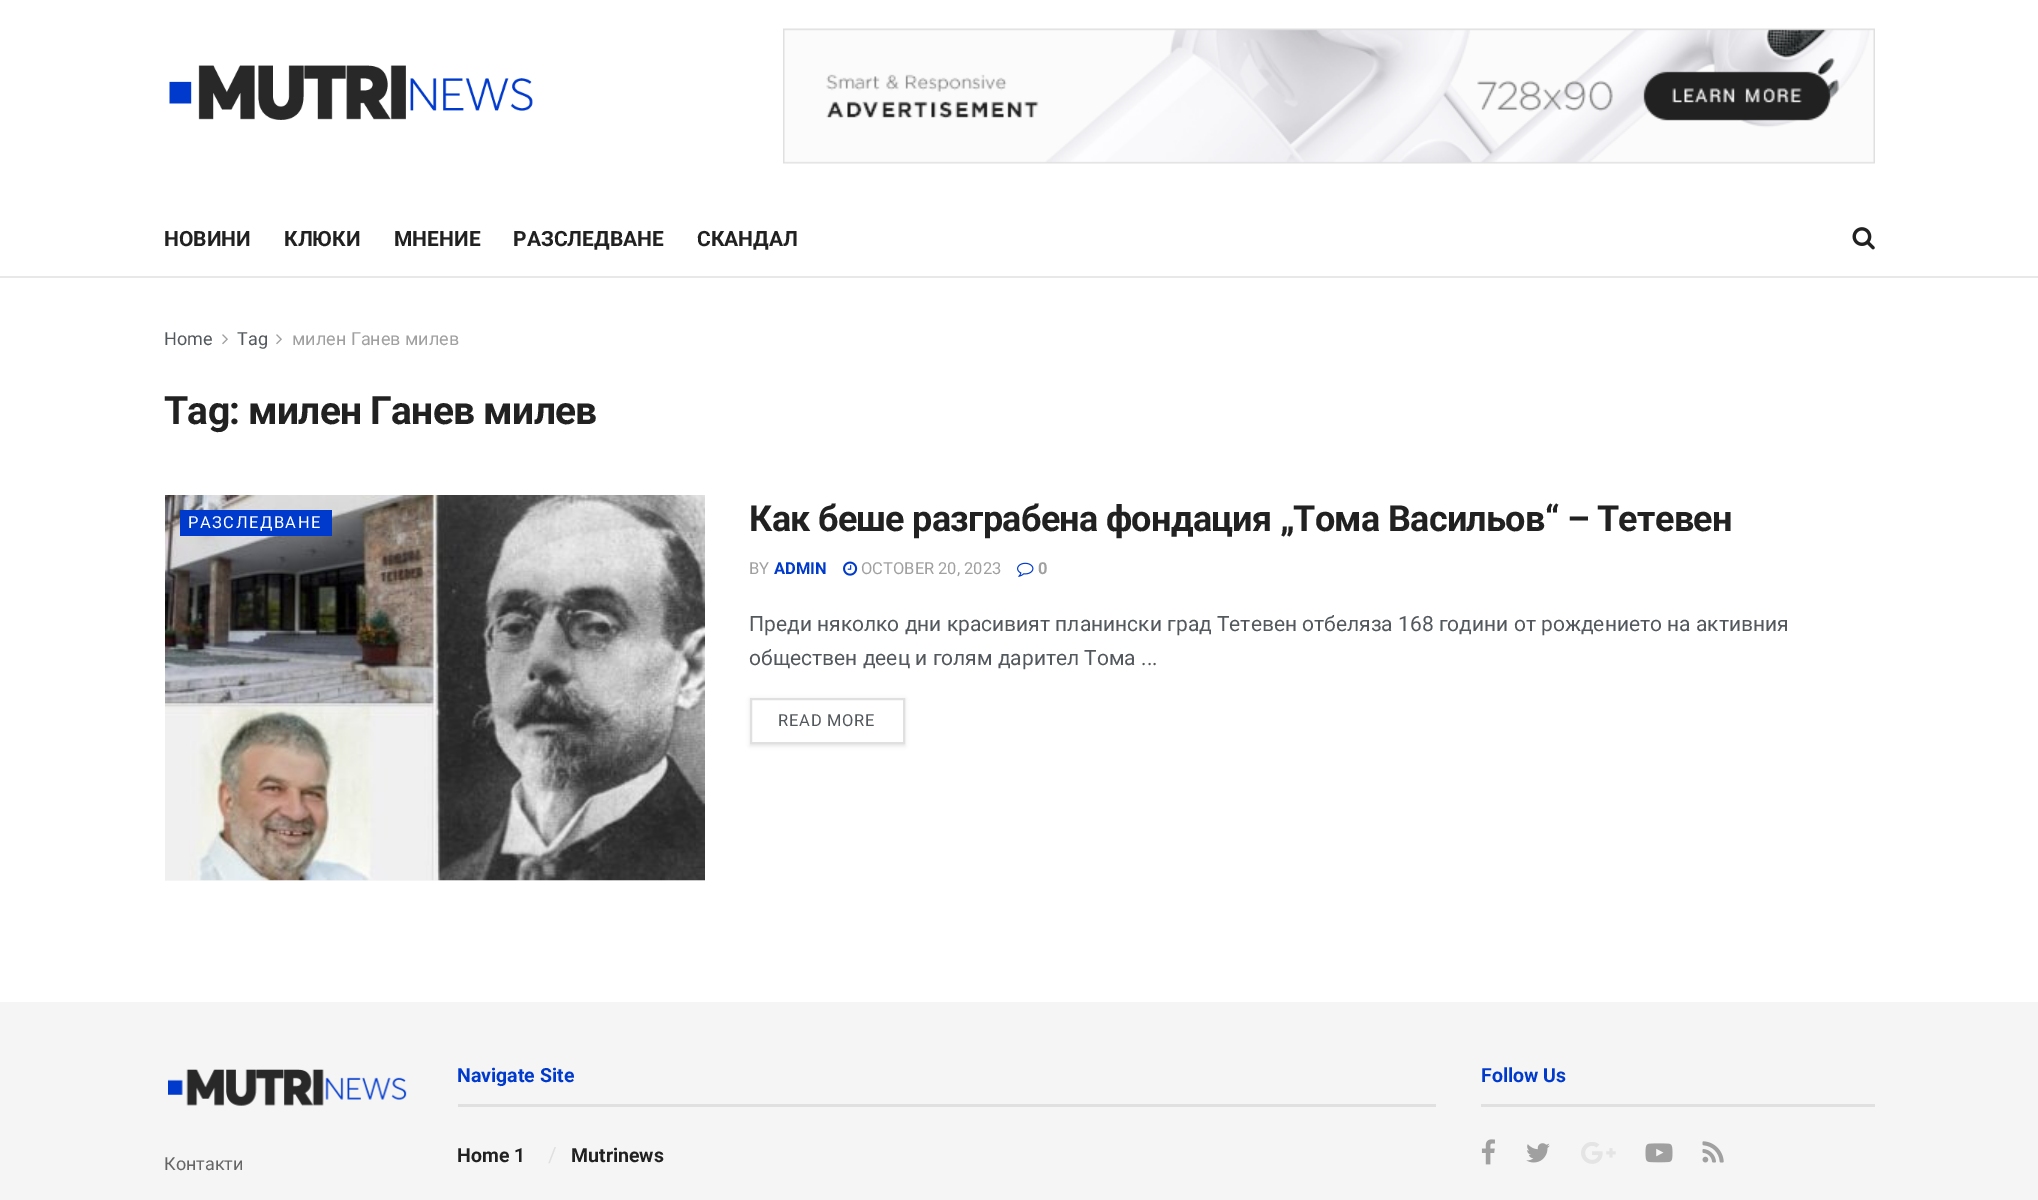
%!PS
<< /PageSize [2038 1200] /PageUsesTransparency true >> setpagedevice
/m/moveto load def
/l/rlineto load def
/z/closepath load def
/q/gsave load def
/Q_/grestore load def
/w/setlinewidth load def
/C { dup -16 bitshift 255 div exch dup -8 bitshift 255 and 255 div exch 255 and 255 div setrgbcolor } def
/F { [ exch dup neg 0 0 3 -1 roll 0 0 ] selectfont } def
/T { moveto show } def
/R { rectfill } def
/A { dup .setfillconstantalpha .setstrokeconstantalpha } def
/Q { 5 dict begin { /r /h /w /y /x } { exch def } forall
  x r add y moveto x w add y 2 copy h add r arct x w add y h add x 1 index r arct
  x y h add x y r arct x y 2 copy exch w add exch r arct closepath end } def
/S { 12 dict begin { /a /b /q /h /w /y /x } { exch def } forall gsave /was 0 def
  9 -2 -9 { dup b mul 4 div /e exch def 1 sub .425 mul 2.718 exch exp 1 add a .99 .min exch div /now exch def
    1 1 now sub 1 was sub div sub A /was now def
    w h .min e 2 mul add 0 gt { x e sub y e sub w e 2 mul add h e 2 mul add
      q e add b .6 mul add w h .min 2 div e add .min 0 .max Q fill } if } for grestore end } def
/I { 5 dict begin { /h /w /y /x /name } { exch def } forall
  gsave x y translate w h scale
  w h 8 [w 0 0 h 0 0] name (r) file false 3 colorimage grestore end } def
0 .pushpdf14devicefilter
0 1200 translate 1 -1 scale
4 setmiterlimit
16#FFFFFF C
0 0 2038 1200 R
(1.rgb) 169 65 364 55 I
(2.rgb) 783 28 1092 136 I
16#E8E8E8 C
0 276 2038 2 R
/Roboto-Bold 21 F
16#212121 C
(НОВИНИ) 164 246 T
(КЛЮКИ) 284 246 T
(МНЕНИЕ) 394 246 T
(РАЗСЛЕДВАНЕ) 513 246 T
(СКАНДАЛ) 697 246 T
(3.rgb) 1852 227 23 23 I
/Roboto-Regular 18 F
16#53585C C
(Home) 164 345 T
(4.rgb) 222 334 6 11 I
(Tag) 237 345 T
(4.rgb) 276 334 6 11 I
16#A0A0A0 C
(милен Ганев милев) 292 345 T
/Roboto-Bold 39 F
16#212121 C
164 424 m -.75 0 (Tag: милен Ганев милев) ashow
16#F7F7F7 C
165 880 540 1 R
(5.rgb) 165 495 540 386 I
16#003ACC C
180 510 152 26 R
/Roboto-Regular 16.5 F
16#FFFFFF C
188 528 m 1.5 0 (РАЗСЛЕДВАНЕ) ashow
/Roboto-Bold 36 F
16#212121 C
749 531 m -.72 0 (Как беше разграбена фондация „Тома Васильов“ – Тетевен) ashow
/Roboto-Regular 16.5 F
16#A0A0A0 C
(BY) 749 574 T
/Roboto-Bold 16.5 F
16#003ACC C
(ADMIN) 774 574 T
(6.rgb) 843 561 15 15 I
/Roboto-Regular 16.5 F
16#A0A0A0 C
(OCTOBER 20, 2023) 861 574 T
(7.rgb) 1017 562 17 15 I
/Roboto-Bold 16.5 F
(0) 1038 574 T
/Roboto-Regular 21 F
16#53585C C
(Преди няколко дни красивият планински град Тетевен отбеляза 168 години от рождението на активния) 749 631 T
(обществен деец и голям дарител Тома ...) 749 665 T
q
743 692 m 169 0 l 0 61 l -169 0 l z 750 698 m 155 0 l 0 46 l -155 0 l z eoclip newpath
16#000000 C
750 699 155 47 0 2 .1 S
Q_
16#E0E0E0 C
2 w
751 699 153 44 rectstroke
/Roboto-Regular 16.5 F
16#53585C C
778 726 m .75 0 (READ MORE) ashow
16#F5F5F5 C
0 1002 2038 198 R
16#E0E0E0 C
458 1104 978 3 R
/Roboto-Bold 19.5 F
16#003ACC C
(Navigate Site) 457 1082 T
16#212121 C
(Home 1) 457 1162 T
/Roboto-Regular 21 F
16#E0E0E0 C
(/) 548 1162 T
/Roboto-Bold 19.5 F
16#212121 C
(Mutrinews) 571 1162 T
16#E0E0E0 C
1481 1104 394 3 R
16#003ACC C
(Follow Us) 1481 1082 T
(8.rgb) 1481 1139 14 26 I
(9.rgb) 1526 1143 24 20 I
(10.rgb) 1581 1142 35 22 I
(11.rgb) 1645 1143 28 20 I
(12.rgb) 1702 1141 22 22 I
(13.rgb) 168 1069 239 37 I
/Roboto-Regular 18 F
16#666666 C
(Контакти) 164 1170 T
.poppdf14devicefilter showpage
